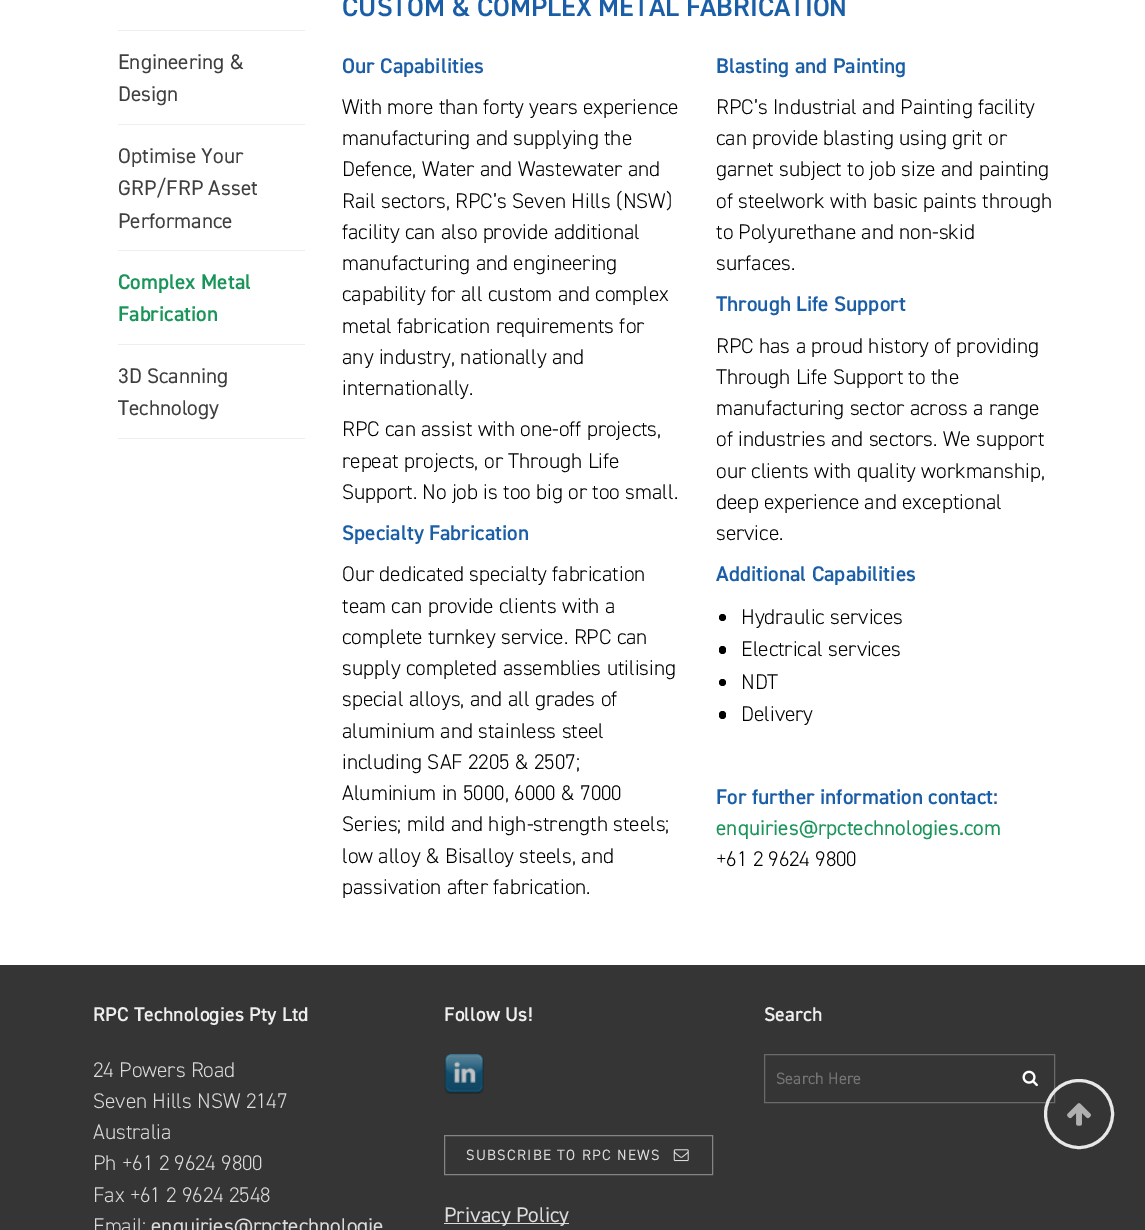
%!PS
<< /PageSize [1145 1230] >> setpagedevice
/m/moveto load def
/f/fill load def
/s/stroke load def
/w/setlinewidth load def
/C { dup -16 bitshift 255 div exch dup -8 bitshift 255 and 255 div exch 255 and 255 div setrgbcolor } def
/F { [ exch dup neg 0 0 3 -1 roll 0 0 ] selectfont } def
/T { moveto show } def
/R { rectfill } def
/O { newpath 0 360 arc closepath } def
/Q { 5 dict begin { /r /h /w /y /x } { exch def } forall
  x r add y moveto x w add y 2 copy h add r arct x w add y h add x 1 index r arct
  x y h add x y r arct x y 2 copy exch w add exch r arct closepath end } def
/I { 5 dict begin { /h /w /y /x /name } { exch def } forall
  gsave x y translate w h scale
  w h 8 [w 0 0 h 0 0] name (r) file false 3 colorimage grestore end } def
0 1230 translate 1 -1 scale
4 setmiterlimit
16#FFFFFF C
0 0 1145 1230 R
16#EEEEEE C
118 30 187 1 R
118 124 187 1 R
/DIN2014-Regular 21.25 F
16#3F3F3F C
(Engineering &) 118 69 T
(Design) 118 101 T
16#EEEEEE C
118 250 187 1 R
16#3F3F3F C
(Optimise Your) 118 163 T
(GRP/FRP Asset) 118 195 T
(Performance) 118 228 T
16#EEEEEE C
118 344 187 1 R
/DIN2014-SemiBold 21.25 F
16#199559 C
(Complex Metal) 118 289 T
(Fabrication) 118 321 T
16#EEEEEE C
118 438 187 1 R
/DIN2014-Regular 21.25 F
16#3F3F3F C
(3D Scanning) 118 383 T
(Technology) 118 415 T
/DIN2014-SemiBold 27.5 F
16#1A5EA7 C
(CUSTOM & COMPLEX METAL FABRICATION) 342 16 T
/DIN2014-SemiBold 21.25 F
(Our Capabilities) 342 73 T
/DIN2014-Light 21.25 F
16#000000 C
(With more than forty years experience) 342 114 T
(manufacturing and supplying the) 342 145 T
(Defence, Water and Wastewater and) 342 176 T
(Rail sectors, RPC’s Seven Hills \(NSW\)) 342 208 T
(facility can also provide additional) 342 239 T
(manufacturing and engineering) 342 270 T
(capability for all custom and complex) 342 301 T
(metal fabrication requirements for) 342 333 T
(any industry, nationally and) 342 364 T
(internationally.) 342 395 T
(RPC can assist with one-off projects,) 342 436 T
(repeat projects, or Through Life) 342 468 T
(Support. No job is too big or too small.) 342 499 T
/DIN2014-SemiBold 21.25 F
16#1A5EA7 C
(Specialty Fabrication) 342 540 T
/DIN2014-Light 21.25 F
16#000000 C
(Our dedicated specialty fabrication) 342 581 T
(team can provide clients with a) 342 613 T
(complete turnkey service. RPC can) 342 644 T
(supply completed assemblies utilising) 342 675 T
(special alloys, and all grades of) 342 706 T
(aluminium and stainless steel) 342 738 T
(including SAF 2205 & 2507;) 342 769 T
(Aluminium in 5000, 6000 & 7000) 342 800 T
(Series; mild and high-strength steels;) 342 831 T
(low alloy & Bisalloy steels, and) 342 863 T
(passivation after fabrication.) 342 894 T
/DIN2014-SemiBold 21.25 F
16#1A5EA7 C
(Blasting and Painting) 716 73 T
/DIN2014-Light 21.25 F
16#000000 C
(RPC’s Industrial and Painting facility) 716 114 T
(can provide blasting using grit or) 716 145 T
(garnet subject to job size and painting) 716 176 T
(of steelwork with basic paints through) 716 208 T
(to Polyurethane and non-skid) 716 239 T
(surfaces.) 716 270 T
/DIN2014-SemiBold 21.25 F
16#1A5EA7 C
(Through Life Support) 716 311 T
/DIN2014-Light 21.25 F
16#000000 C
(RPC has a proud history of providing) 716 353 T
(Through Life Support to the) 716 384 T
(manufacturing sector across a range) 716 415 T
(of industries and sectors. We support) 716 446 T
(our clients with quality workmanship,) 716 478 T
(deep experience and exceptional) 716 509 T
(service.) 716 540 T
/DIN2014-SemiBold 21.25 F
16#1A5EA7 C
(Additional Capabilities) 716 581 T
16#000000 C
722.5 617.5 3.5 O f
/DIN2014-Light 21.25 F
(Hydraulic services) 741 624 T
719 646 7 8 3.5 Q f
(Electrical services) 741 656 T
722.5 682.5 3.5 O f
(NDT) 741 689 T
719 711 7 8 3.5 Q f
(Delivery) 741 721 T
/DIN2014-SemiBold 21.25 F
16#1A5EA7 C
(For further information contact:) 716 804 T
/DIN2014-Regular 21.25 F
16#199559 C
(enquiries@rpctechnologies.com) 716 835 T
/DIN2014-Light 21.25 F
16#000000 C
(+61 2 9624 9800) 716 866 T
16#353535 C
0 965 1145 265 R
/DIN2014-SemiBold 20 F
16#EEEEEE C
(RPC Technologies Pty Ltd) 93 1021 T
/DIN2014-Light 21.25 F
16#DBDBDB C
(24 Powers Road) 93 1077 T
(Seven Hills NSW 2147) 93 1108 T
(Australia) 93 1139 T
(Ph +61 2 9624 9800) 93 1170 T
(Fax +61 2 9624 2548) 93 1202 T
(Email:) 93 1233 T
/DIN2014-Regular 21.25 F
(enquiries@rpctechnologie) 151 1233 T
/DIN2014-SemiBold 20 F
16#EEEEEE C
(Follow Us!) 444 1021 T
(1.rgb) 444 1054 40 40 I
16#848484 C
444.5 1135.5 268 39 rectstroke
/DIN2014-Regular 15 F
16#DBDBDB C
466 1160 m 1.25 0 (SUBSCRIBE TO RPC NEWS) ashow
(2.rgb) 673 1149 16 13 I
444 1223 125 1 R
/DIN2014-Regular 21.25 F
(Privacy Policy) 444 1222 T
/DIN2014-SemiBold 20 F
16#EEEEEE C
(Search) 764 1021 T
16#6A6A6A C
764.5 1054.5 290 48 rectstroke
/DIN2014-Regular 16.5 F
16#757575 C
(Search Here) 776 1084 T
(3.rgb) 1022 1070 16 17 I
16#E8E8E8 C
3 w
1079 1114 33.5 O s
(4.rgb) 1067 1103 24 23 I
showpage
